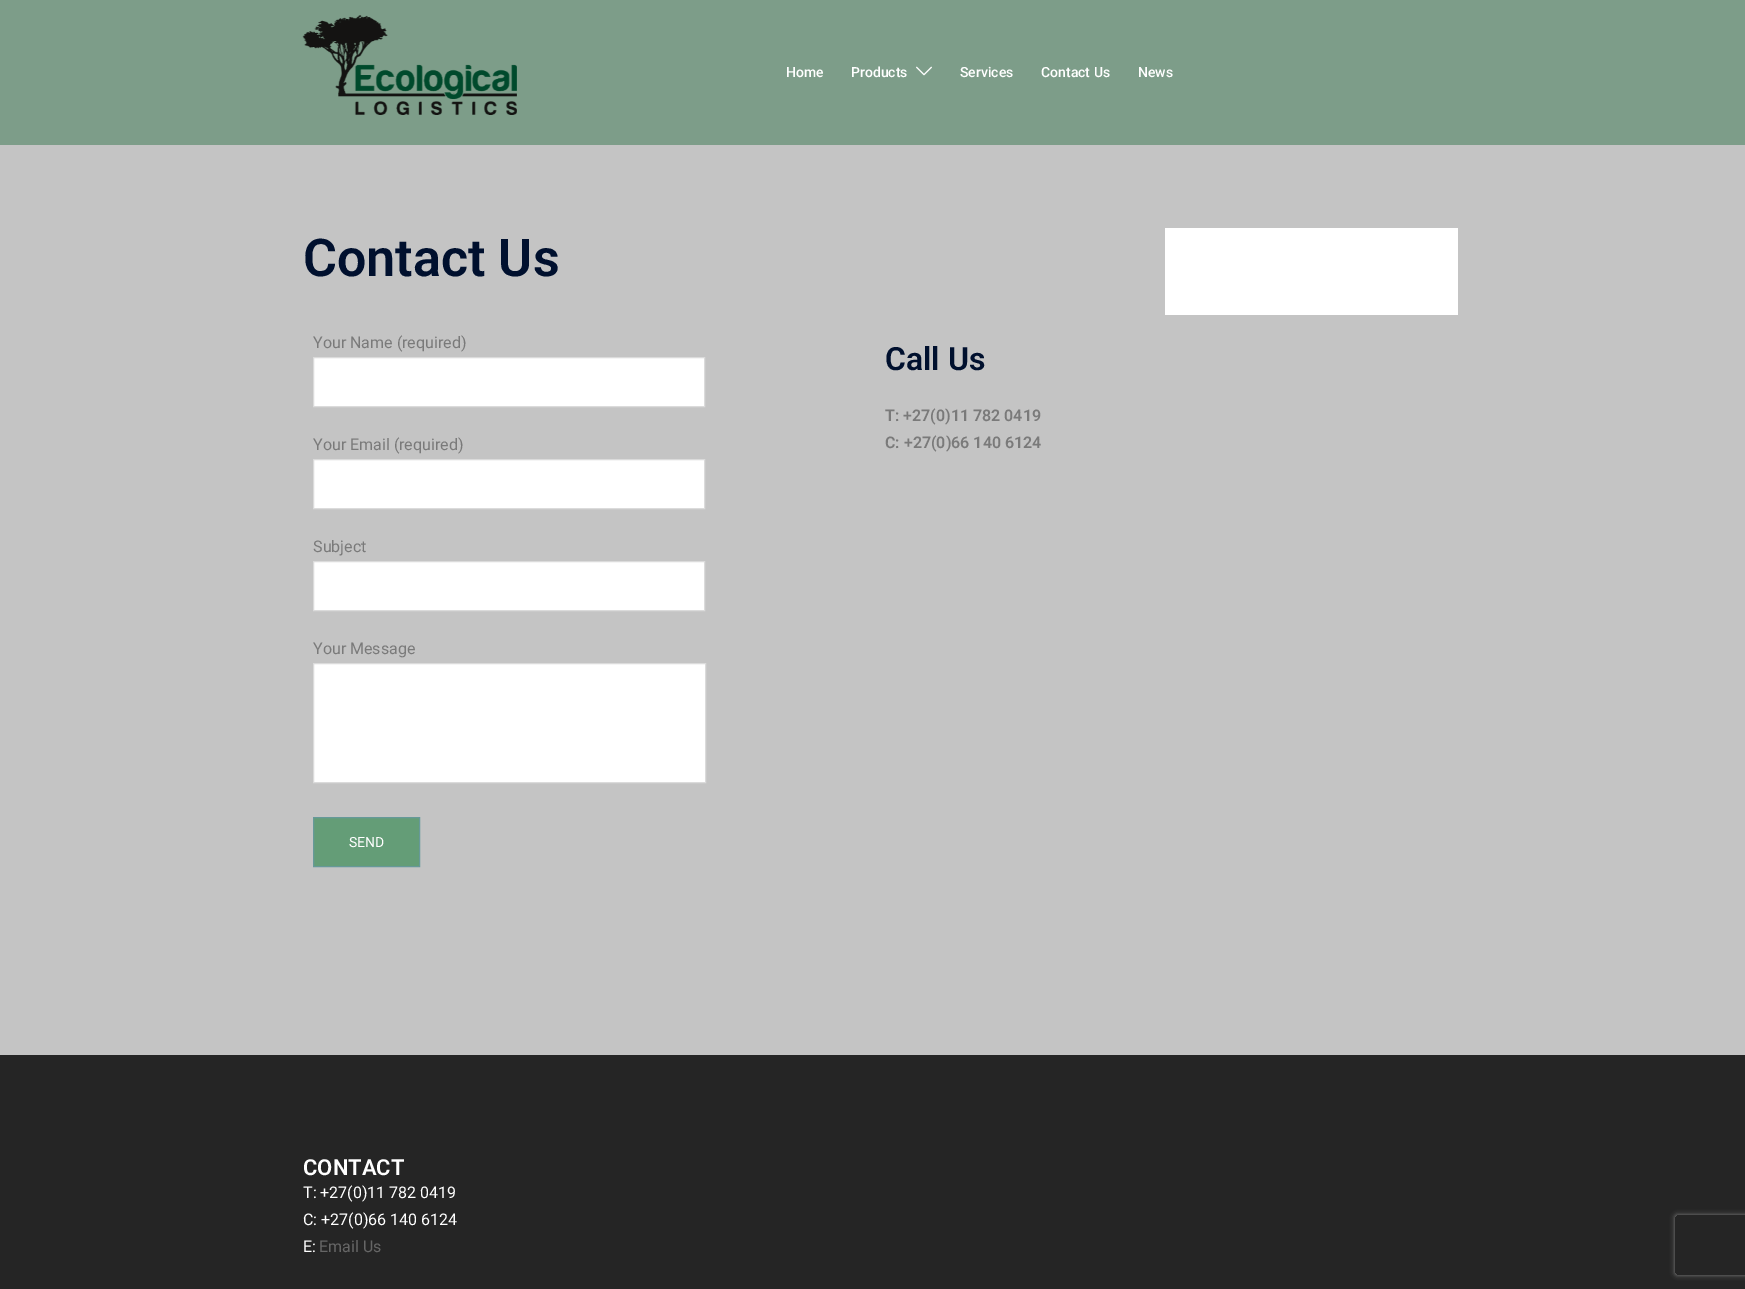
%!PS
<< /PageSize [1745 1289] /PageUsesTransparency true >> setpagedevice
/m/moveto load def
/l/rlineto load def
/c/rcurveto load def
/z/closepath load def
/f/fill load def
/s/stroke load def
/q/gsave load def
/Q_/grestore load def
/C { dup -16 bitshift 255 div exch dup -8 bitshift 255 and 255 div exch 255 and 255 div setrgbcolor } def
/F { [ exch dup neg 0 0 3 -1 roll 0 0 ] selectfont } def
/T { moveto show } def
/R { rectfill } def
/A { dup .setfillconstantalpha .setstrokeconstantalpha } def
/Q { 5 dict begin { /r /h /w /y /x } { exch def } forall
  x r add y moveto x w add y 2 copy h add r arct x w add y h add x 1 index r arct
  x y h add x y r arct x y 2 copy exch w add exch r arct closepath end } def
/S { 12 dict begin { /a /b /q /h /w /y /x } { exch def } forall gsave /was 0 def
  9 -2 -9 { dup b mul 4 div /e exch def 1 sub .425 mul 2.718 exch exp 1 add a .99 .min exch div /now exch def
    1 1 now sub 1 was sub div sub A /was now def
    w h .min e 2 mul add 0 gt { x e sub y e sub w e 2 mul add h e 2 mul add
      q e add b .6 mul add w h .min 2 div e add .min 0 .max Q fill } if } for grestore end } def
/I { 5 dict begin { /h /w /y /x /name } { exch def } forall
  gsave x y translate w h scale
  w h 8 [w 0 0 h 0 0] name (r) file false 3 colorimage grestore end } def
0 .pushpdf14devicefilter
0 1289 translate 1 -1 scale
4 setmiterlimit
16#C4C4C4 C
0 0 1745 1289 R
16#7D9D89 C
0 0 1745 145 R
(1.rgb) 302 15 215 100 I
/Roboto-Medium 14 F
16#FFFFFF C
(Home) 786 77 T
(Products) 851 77 T
(2.rgb) 916 66 16 10 I
(Services) 960 77 T
(Contact Us) 1041 77 T
(News) 1138 77 T
/Roboto-SemiBold 52 F
16#00102E C
(Contact Us) 303 276 T
/Roboto-Regular 16 F
16#7A7A7A C
(Your Name \(required\)) 313 348 T
16#FFFFFF C
313.5 357.5 m 391 0 l 0 49 l -391 0 l z q f Q_
16#DBDBDB C
s
16#7A7A7A C
(Your Email \(required\)) 313 450 T
16#FFFFFF C
313.5 459.5 m 391 0 l 0 49 l -391 0 l z q f Q_
16#DBDBDB C
s
16#7A7A7A C
(Subject) 313 552 T
16#FFFFFF C
313.5 561.5 m 391 0 l 0 49 l -391 0 l z q f Q_
16#DBDBDB C
s
16#7A7A7A C
(Your Message) 313 654 T
16#FFFFFF C
313.5 663.5 m 392 0 l 0 119 l -392 0 l z q f Q_
16#DBDBDB C
s
16#649D77 C
313.5 817.5 m 106 0 l 0 49 l -106 0 l z q f Q_
16#669999 C
s
/Roboto-Regular 14 F
16#FFFFFF C
(SEND) 349 847 T
/Roboto-SemiBold 32 F
16#00102E C
(Call Us) 885 370 T
/Roboto-SemiBold 16 F
16#7A7A7A C
(T: +27\(0\)11 782 0419) 885 421 T
(C: +27\(0\)66 140 6124) 885 448 T
16#FFFFFF C
1165 228 293 87 R
16#252525 C
0 1055 1745 234 R
/Roboto-SemiBold 22 F
16#FFFFFF C
(CONTACT) 303 1175 T
/Roboto-Regular 16 F
(T: +27\(0\)11 782 0419) 303 1198 T
(C: +27\(0\)66 140 6124) 303 1225 T
(E:) 303 1252 T
16#666666 C
(Email Us) 319 1252 T
q
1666 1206 m 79 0 l 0 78 l -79 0 l z 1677 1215 m 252 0 l 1 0 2 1 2 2 c 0 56 l 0 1 -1 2 -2 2 c -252 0 l -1 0 -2 -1 -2 -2 c 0 -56 l 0 -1 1 -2 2 -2 c z eoclip newpath
16#808080 C
1675 1215 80 60 2 2.5 1 S
Q_
.poppdf14devicefilter showpage
